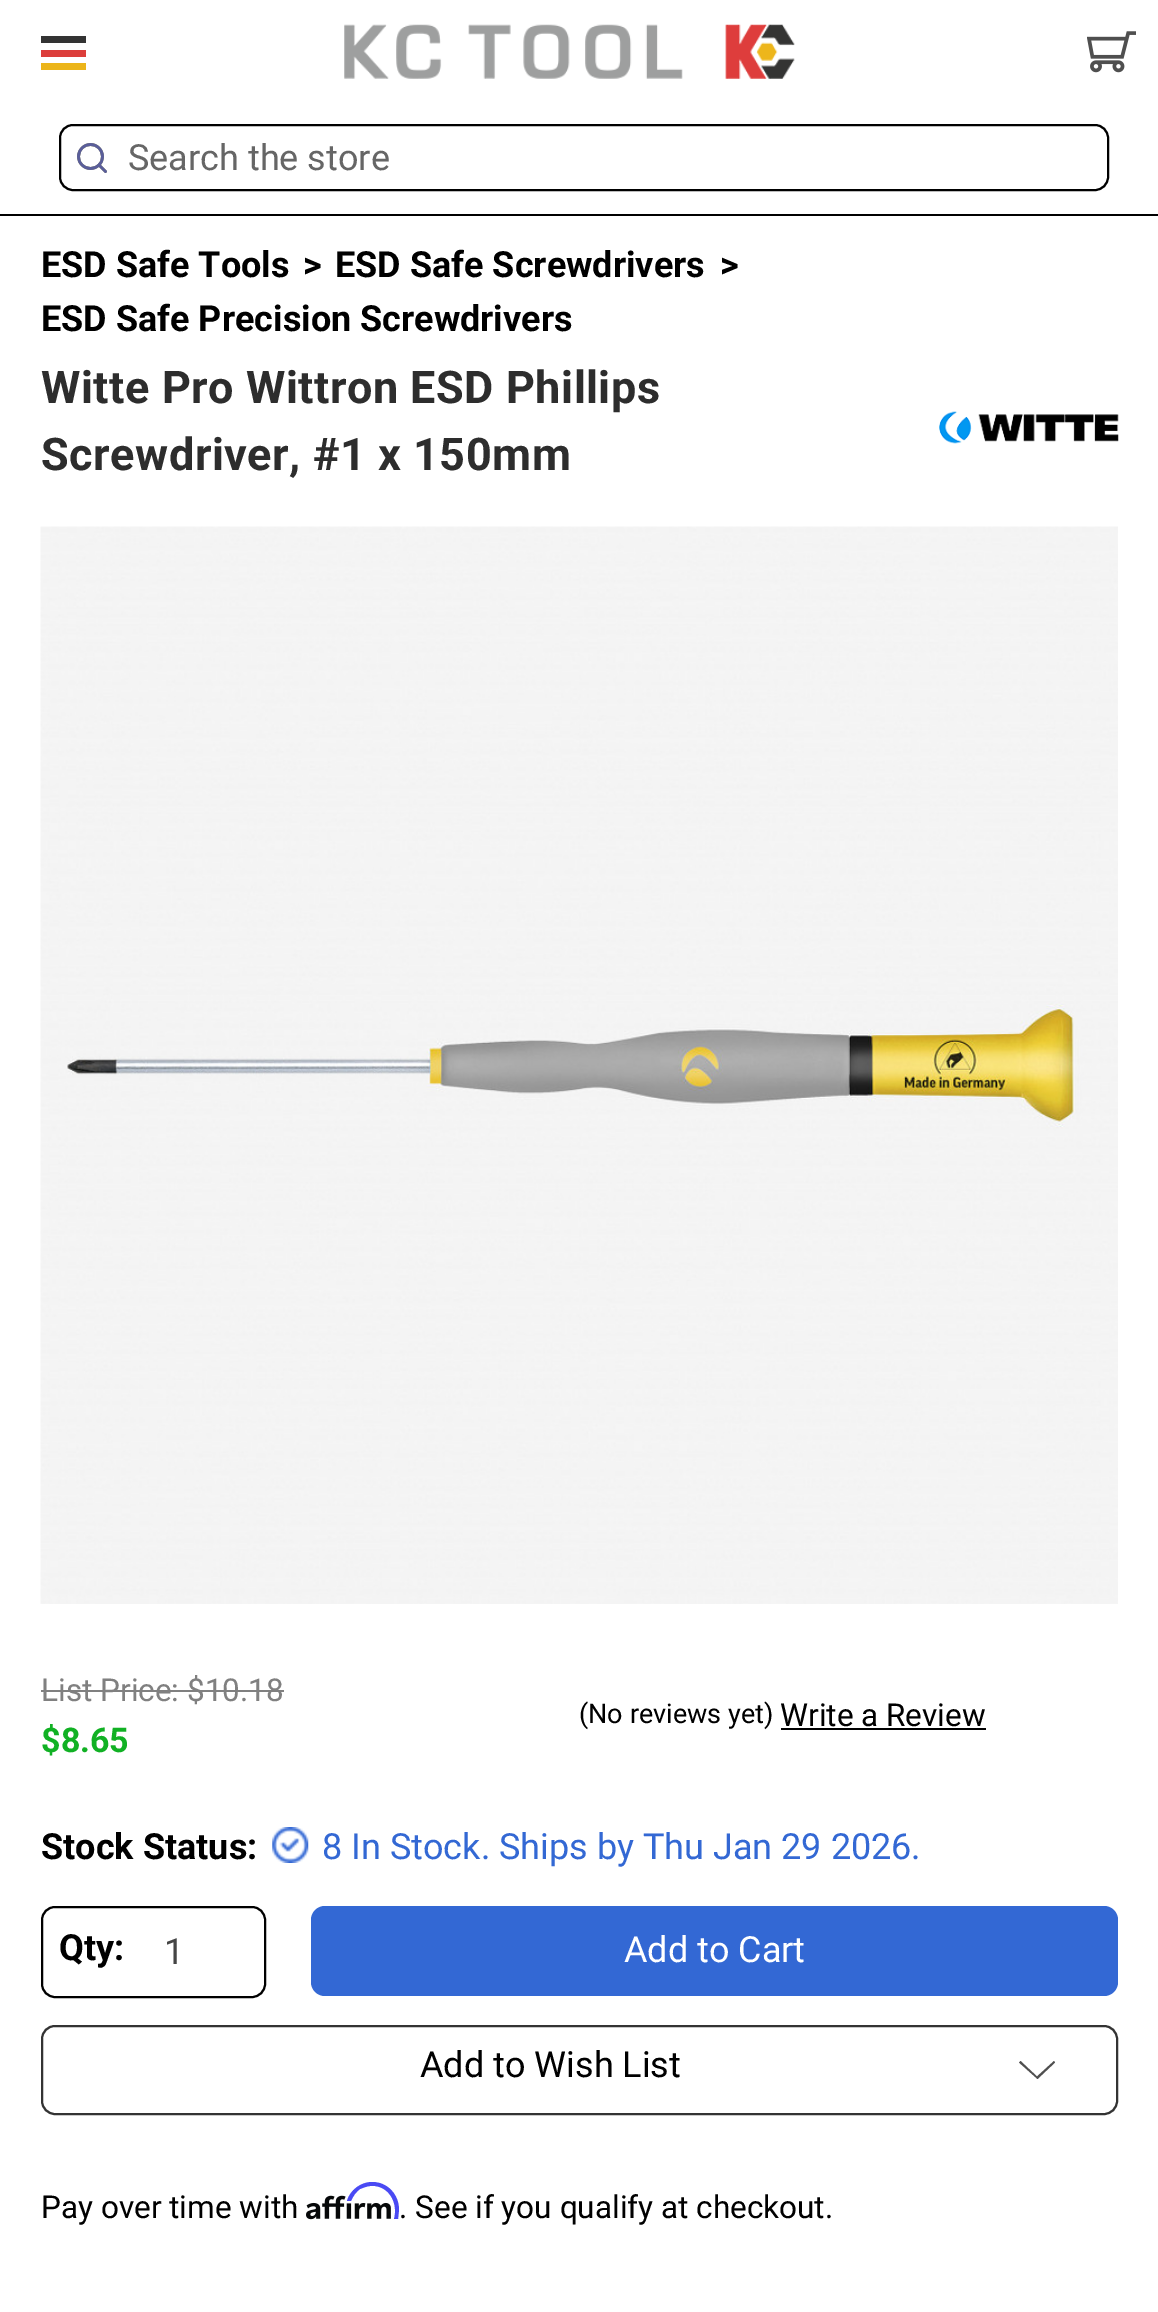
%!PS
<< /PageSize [1158 2312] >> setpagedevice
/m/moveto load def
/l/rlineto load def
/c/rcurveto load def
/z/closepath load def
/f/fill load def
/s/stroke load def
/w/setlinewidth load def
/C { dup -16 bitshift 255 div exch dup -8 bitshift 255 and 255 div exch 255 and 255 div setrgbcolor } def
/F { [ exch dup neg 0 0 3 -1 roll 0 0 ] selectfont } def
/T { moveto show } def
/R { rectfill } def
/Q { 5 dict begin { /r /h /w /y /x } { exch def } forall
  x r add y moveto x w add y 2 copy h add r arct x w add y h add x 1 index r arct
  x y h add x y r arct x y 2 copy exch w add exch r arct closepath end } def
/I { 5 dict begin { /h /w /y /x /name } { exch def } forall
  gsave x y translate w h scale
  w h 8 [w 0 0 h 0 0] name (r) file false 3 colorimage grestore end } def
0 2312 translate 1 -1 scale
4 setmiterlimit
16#FFFFFF C
0 0 1158 2312 R
16#000000 C
0 214 1158 2 R
(1.rgb) 344 24 451 55 I
16#DC3E3B C
41 50 45 7 R
16#333333 C
41 36 45 7 R
16#ECB51A C
41 63 45 7 R
(2.rgb) 1087 31 49 42 I
16#000000 C
2 w
60 125 1048 65 13 Q s
(3.rgb) 77 143 30 30 I
/Roboto-Regular 36 F
16#666666 C
(Search the store) 128 170 T
/Roboto-Bold 36 F
16#000000 C
(ESD Safe Tools) 41 277 T
(>) 303 277 T
(ESD Safe Screwdrivers) 335 277 T
(>) 720 277 T
(ESD Safe Precision Screwdrivers) 41 331 T
/Roboto-Bold 45 F
16#2D2D2D C
41 403 m .55 0 (Witte Pro Wittron ESD Phillips) ashow
41 470 m .55 0 (Screwdriver, #1 x 150mm) ashow
(4.rgb) 939 411 180 33 I
(5.rgb) 40 526 1078 1078 I
/Roboto-Regular 31.5 F
16#808080 C
(List Price: $10.18) 41 1701 T
41 1690 243 2 R
/Roboto-Bold 34 F
16#11B124 C
($8.65) 41 1752 T
/Roboto-Regular 27 F
16#000000 C
(\(No reviews yet\)) 579 1723 T
/Roboto-Regular 31.5 F
(Write a Review) 780 1726 T
781 1728 205 2 R
/Roboto-Bold 36 F
(Stock Status:) 41 1859 T
(6.rgb) 272 1827 37 36 I
/Roboto-Regular 36 F
16#3368D4 C
(8 In Stock. Ships by Thu Jan 29 2026.) 322 1859 T
16#000000 C
42 1907 223 90 13 Q s
/Roboto-Bold 36 F
(Qty:) 59 1960 T
/Roboto-Regular 36 F
16#454545 C
(1) 164 1964 T
16#3368D4 C
311 1906 807 90 14 Q f
16#FFFFFF C
(Add to Cart) 624 1962 T
16#333333 C
42 2026 1075 88 13 Q s
16#000000 C
(Add to Wish List) 420 2077 T
16#4F4F4F C
1037 2076.5 m 17 -15.5 l 1 1.5 l -17.5 16.5 l -18.5 -16.5 l 1.5 -1.5 l z eofill
/Roboto-Regular 31.5 F
16#000000 C
(Pay over time with) 41 2218 T
(7.rgb) 306 2195 85 25 I
16#4A4AF4 C
372 2182 m -11 0 -22 8 -25 19 c 4 0 l 2 -5 5 -9 9 -12 c 5 -2 10 -4 15 -3 c 16 2 23 19 19 33 c 4 0 l 1 -9 l 0 -15 -11 -28 -27 -28 c z f
16#000000 C
(. See if you qualify at checkout.) 399 2218 T
showpage
